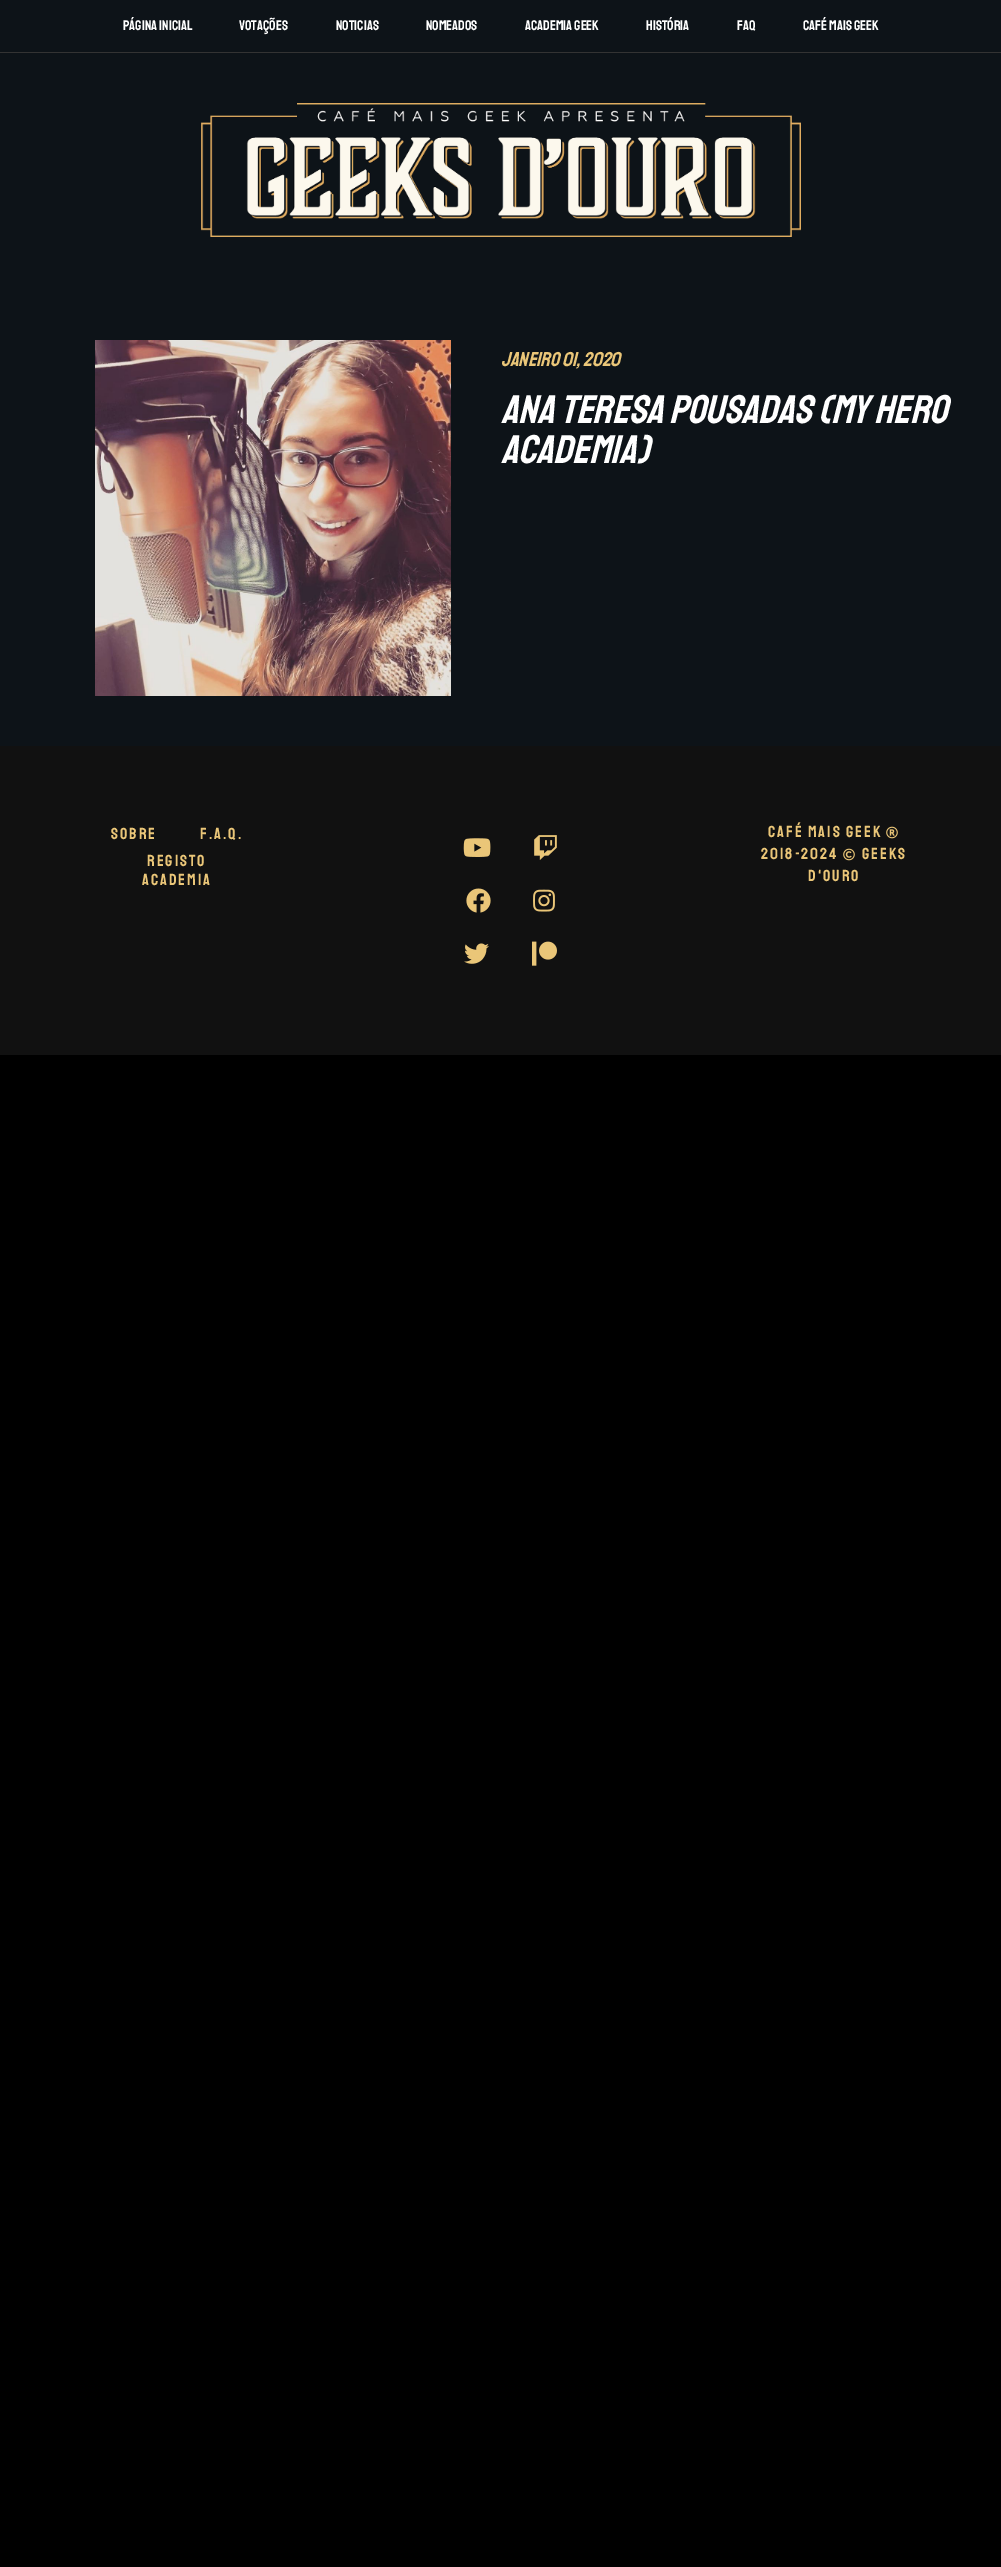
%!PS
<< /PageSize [1001 2567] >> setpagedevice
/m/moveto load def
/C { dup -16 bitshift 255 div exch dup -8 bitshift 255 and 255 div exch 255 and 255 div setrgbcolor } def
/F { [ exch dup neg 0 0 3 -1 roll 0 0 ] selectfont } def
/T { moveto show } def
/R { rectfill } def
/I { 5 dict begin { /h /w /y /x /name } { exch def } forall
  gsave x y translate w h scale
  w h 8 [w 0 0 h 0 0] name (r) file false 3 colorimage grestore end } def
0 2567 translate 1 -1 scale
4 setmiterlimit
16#000000 C
0 0 1001 2567 R
16#0D1318 C
0 0 1001 746 R
16#333333 C
0 52 1001 1 R
/Staatliches-Regular 14 F
16#FFFFFF C
(Página Inicial) 123 30 T
(Votações) 239 30 T
(Noticias) 336 30 T
(Nomeados) 426 30 T
(Academia Geek) 525 30 T
(História) 646 30 T
(FAQ) 737 30 T
(Café Mais Geek) 803 30 T
(1.rgb) 201 103 600 134 I
(2.rgb) 95 340 356 356 I
/Staatliches-Italic 20 F
16#EAC678 C
(janeiro 01, 2020) 501 366 T
/Staatliches-Italic 40 F
16#FFFFFF C
(Ana Teresa Pousadas \(My Hero) 501 423 T
(Academia\)) 501 463 T
16#111111 C
0 746 1001 309 R
/Staatliches-Regular 16 F
16#EAC678 C
111 839 m 2 0 (Sobre) ashow
200 839 m 2 0 (F.A.Q.) ashow
147 866 m 2 0 (Registo) ashow
142 885 m 2 0 (Academia) ashow
(3.rgb) 463 838 28 19 I
(4.rgb) 534 835 23 25 I
(5.rgb) 466 888 25 25 I
(6.rgb) 533 889 22 23 I
(7.rgb) 464 943 25 21 I
(8.rgb) 532 941 25 25 I
768 837 m 2 0 (CAFÉ MAIS GEEK) ashow
(9.rgb) 886 826 12 13 I
761 859 m 2 0 (2018-2024) ashow
(10.rgb) 843 848 12 13 I
862 859 m 2 0 (GEEKS) ashow
808 881 m 2 0 (d'OURO) ashow
showpage
